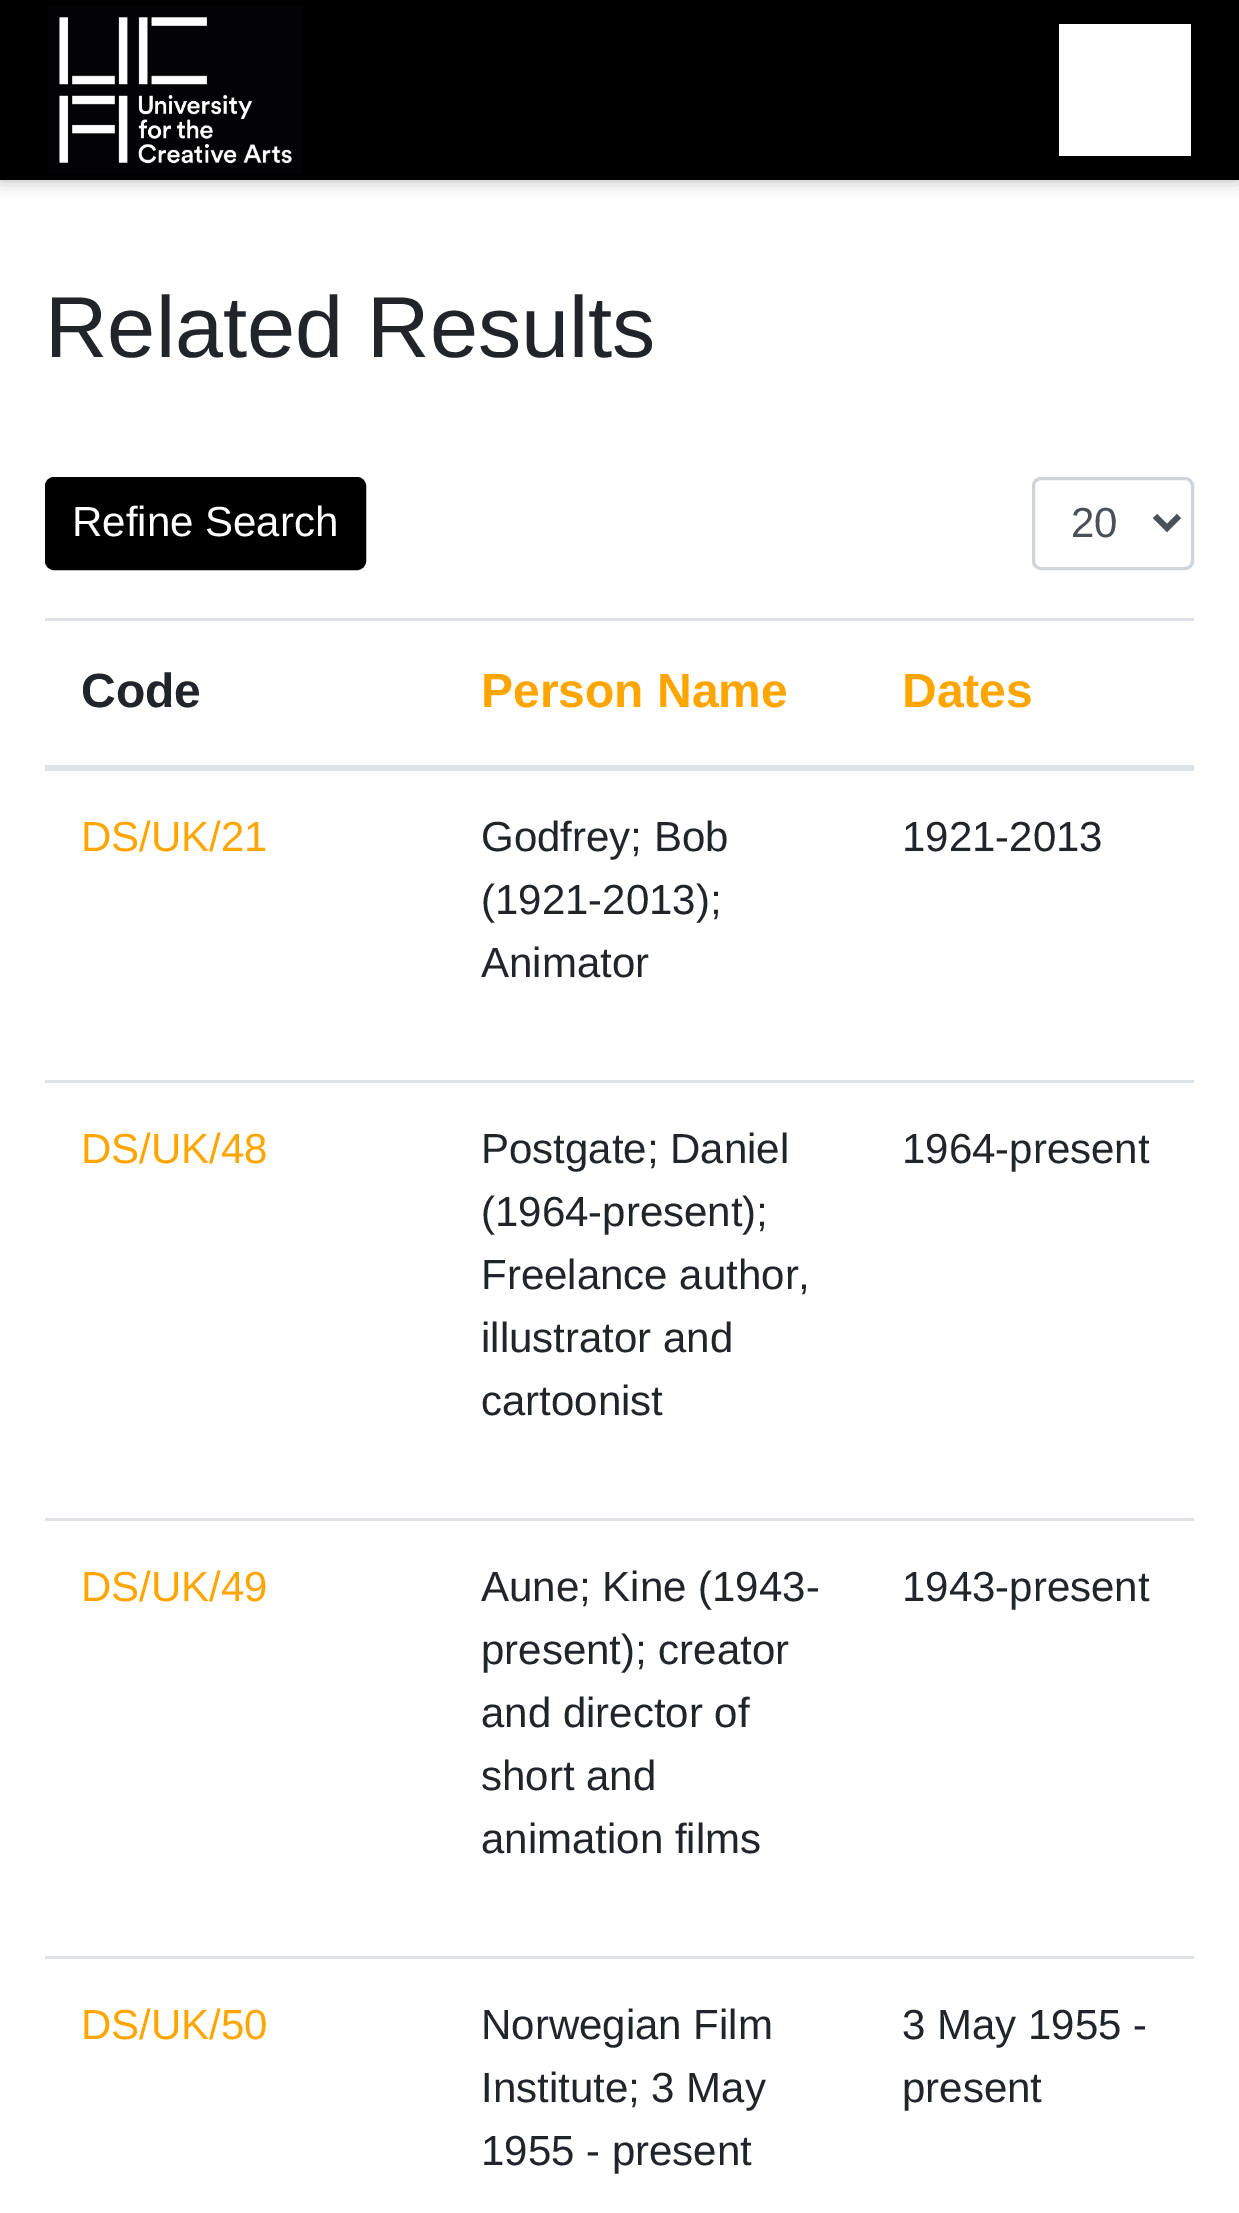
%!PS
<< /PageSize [1239 2213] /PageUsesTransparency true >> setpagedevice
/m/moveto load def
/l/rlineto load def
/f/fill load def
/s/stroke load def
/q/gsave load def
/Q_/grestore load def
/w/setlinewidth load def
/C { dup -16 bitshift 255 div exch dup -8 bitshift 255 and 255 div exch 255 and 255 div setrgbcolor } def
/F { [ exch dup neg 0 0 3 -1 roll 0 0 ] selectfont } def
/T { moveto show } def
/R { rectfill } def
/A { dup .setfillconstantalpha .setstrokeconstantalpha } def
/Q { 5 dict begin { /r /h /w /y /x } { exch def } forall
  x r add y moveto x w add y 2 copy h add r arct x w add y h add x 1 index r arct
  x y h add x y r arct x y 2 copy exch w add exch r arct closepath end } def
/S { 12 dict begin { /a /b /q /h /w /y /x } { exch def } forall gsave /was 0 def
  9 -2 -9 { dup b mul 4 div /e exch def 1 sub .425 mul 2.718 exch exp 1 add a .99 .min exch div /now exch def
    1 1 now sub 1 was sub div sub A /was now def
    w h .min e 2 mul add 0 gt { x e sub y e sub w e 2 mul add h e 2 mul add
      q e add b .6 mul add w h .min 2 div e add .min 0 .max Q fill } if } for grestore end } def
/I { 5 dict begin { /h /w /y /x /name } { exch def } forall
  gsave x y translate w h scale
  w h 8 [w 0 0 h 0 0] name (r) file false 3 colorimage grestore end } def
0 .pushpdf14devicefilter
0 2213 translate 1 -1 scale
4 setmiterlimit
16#FFFFFF C
0 0 1239 2213 R
16#000000 C
0 0 1239 180 0 9 .3 S
0 0 1239 180 R
(1.rgb) 48 6 255 168 I
16#FFFFFF C
1059 24 132 132 R
/LiberationSans-Regular 86.5 F
16#212529 C
(Related Results) 45 357 T
16#000000 C
46.5 478.5 318 90 7.5 Q q f Q_
3 w
s
/LiberationSans-Regular 42 F
16#FFFFFF C
(Refine Search) 72 536 T
16#CED4DA C
1033.5 478.5 159 90 7.5 Q s
16#495057 C
6 w
1155 516 m 12 12 l 12 -12 l s
(20) 1071 537 T
/LiberationSans-Bold 48 F
16#212529 C
(Code) 81 707 T
16#FFA500 C
(Person Name) 481 707 T
16#DEE2E6 C
45 618 1149 3 R
45 765 1149 6 R
16#FFA500 C
(Dates) 902 707 T
/LiberationSans-Regular 42 F
(DS/UK/21) 81 851 T
16#212529 C
(Godfrey; Bob) 481 851 T
(\(1921-2013\);) 481 914 T
(Animator) 481 977 T
(1921-2013) 902 851 T
16#FFA500 C
(DS/UK/48) 81 1163 T
16#212529 C
(Postgate; Daniel) 481 1163 T
(\(1964-present\);) 481 1226 T
(Freelance author,) 481 1289 T
(illustrator and) 481 1352 T
(cartoonist) 481 1415 T
16#DEE2E6 C
45 1080 1149 3 R
16#212529 C
(1964-present) 902 1163 T
16#FFA500 C
(DS/UK/49) 81 1601 T
16#212529 C
(Aune; Kine \(1943-) 481 1601 T
(present\); creator) 481 1664 T
(and director of) 481 1727 T
(short and) 481 1790 T
(animation films) 481 1853 T
16#DEE2E6 C
45 1518 1149 3 R
16#212529 C
(1943-present) 902 1601 T
16#FFA500 C
(DS/UK/50) 81 2039 T
16#212529 C
(Norwegian Film) 481 2039 T
(Institute; 3 May) 481 2102 T
(1955 - present) 481 2165 T
16#DEE2E6 C
45 1956 1149 3 R
16#212529 C
(3 May 1955 -) 902 2039 T
(present) 902 2102 T
.poppdf14devicefilter showpage
